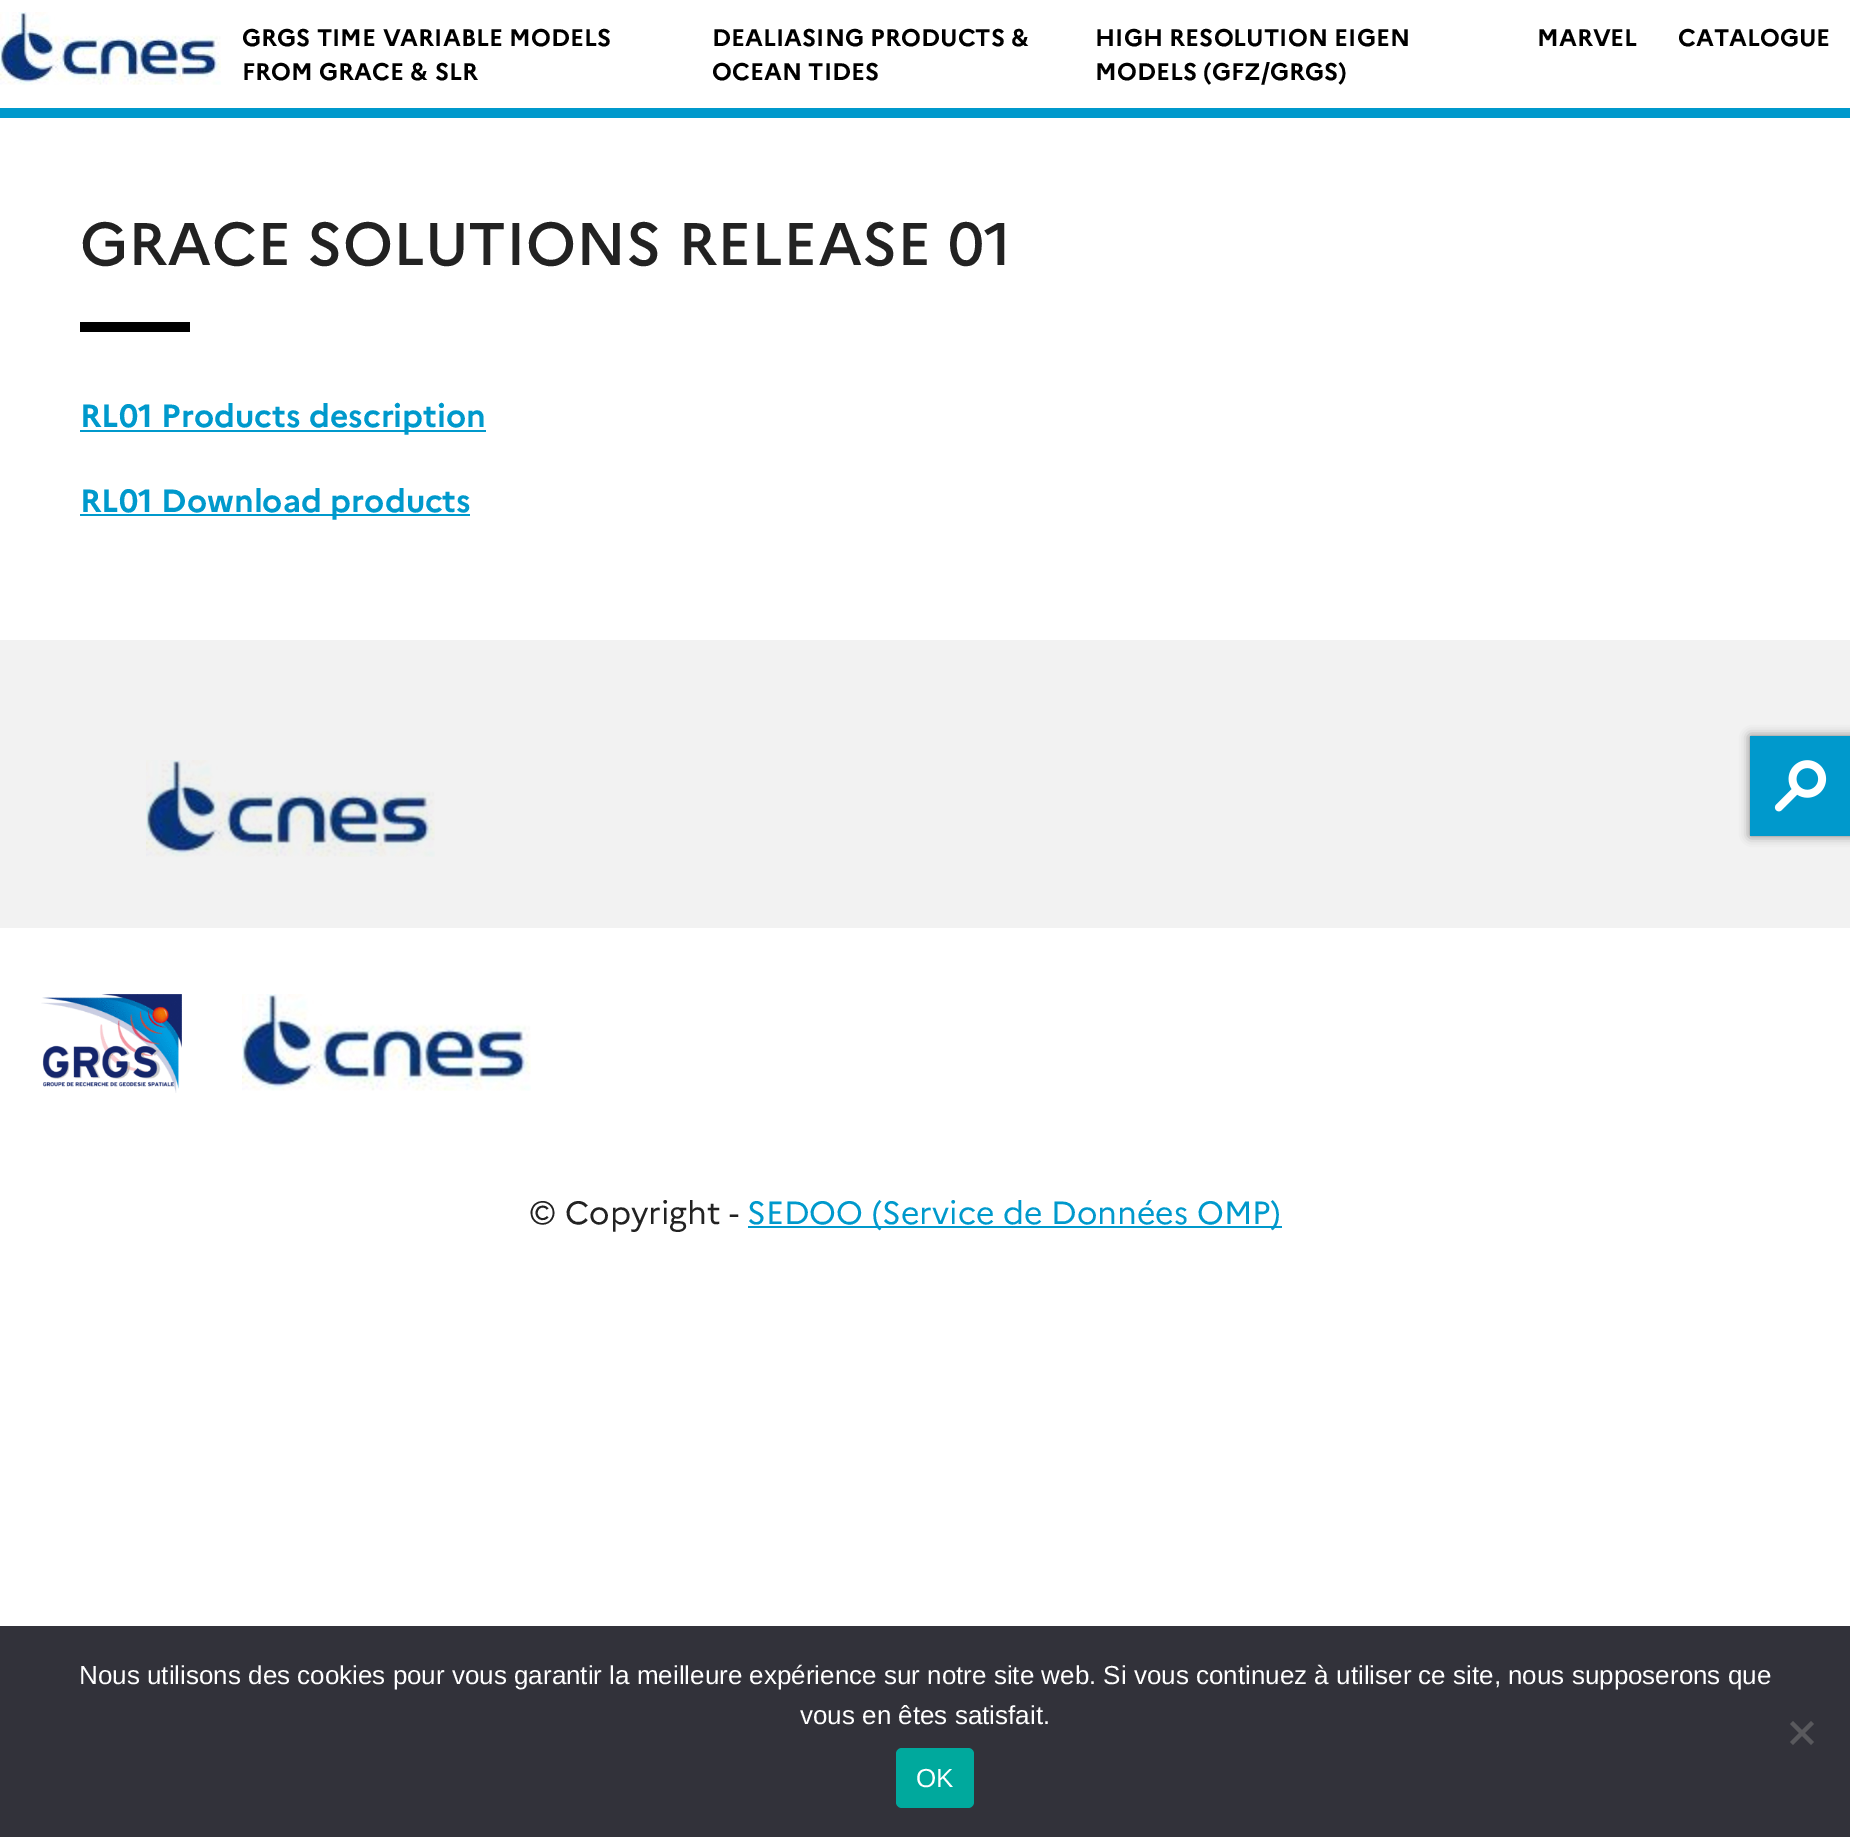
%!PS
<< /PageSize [1850 1837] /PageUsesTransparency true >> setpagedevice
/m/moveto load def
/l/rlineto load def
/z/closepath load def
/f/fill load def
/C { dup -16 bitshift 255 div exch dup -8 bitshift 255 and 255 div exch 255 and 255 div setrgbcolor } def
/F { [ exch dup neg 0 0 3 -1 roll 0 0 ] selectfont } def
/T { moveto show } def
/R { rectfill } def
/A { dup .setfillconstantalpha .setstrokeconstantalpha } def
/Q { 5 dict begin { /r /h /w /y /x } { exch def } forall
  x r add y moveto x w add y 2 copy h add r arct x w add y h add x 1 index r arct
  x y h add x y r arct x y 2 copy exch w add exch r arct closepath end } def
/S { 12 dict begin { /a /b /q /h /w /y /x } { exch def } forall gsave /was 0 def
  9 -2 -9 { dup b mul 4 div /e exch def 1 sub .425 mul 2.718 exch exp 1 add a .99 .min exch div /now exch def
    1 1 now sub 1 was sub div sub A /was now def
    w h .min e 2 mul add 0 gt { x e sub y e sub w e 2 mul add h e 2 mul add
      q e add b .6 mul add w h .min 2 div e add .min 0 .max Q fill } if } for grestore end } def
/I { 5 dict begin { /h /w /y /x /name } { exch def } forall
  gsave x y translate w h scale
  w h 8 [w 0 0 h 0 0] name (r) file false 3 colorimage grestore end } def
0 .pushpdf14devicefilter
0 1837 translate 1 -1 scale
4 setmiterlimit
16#FFFFFF C
0 0 1850 1837 R
16#0099CC C
0 108 1850 10 R
(1.rgb) 0 12 221 73 I
/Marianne-Bold 24 F
16#000000 C
(GRGS TIME VARIABLE MODELS) 242 46 T
(FROM GRACE & SLR) 242 80 T
(DEALIASING PRODUCTS &) 712 46 T
(OCEAN TIDES) 712 80 T
(HIGH RESOLUTION EIGEN) 1095 46 T
(MODELS \(GFZ/GRGS\)) 1095 80 T
(MARVEL) 1537 46 T
(CATALOGUE) 1678 46 T
/Marianne-Medium 60 F
16#222222 C
(GRACE SOLUTIONS RELEASE 01) 80 265 T
16#000000 C
80 322 110 10 R
16#0099CC C
80 430 406 2 R
/Marianne-Bold 32 F
(RL01 Products description) 80 427 T
80 514 390 2 R
(RL01 Download products) 80 512 T
16#F2F2F2 C
0 640 1850 288 R
(2.rgb) 146 760 289 97 I
(3.rgb) 41 994 141 99 I
(4.rgb) 242 994 289 97 I
/Marianne-Regular 32 F
16#222222 C
(© Copyright -) 529 1224 T
16#0099CC C
748 1226 534 2 R
(SEDOO \(Service de Données OMP\)) 747 1224 T
16#000000 C
1750 736 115 100 0 5 .5 S
16#0099CC C
1750 736 100 100 R
(5.rgb) 1774 760 53 52 I
16#32323A C
0 1626 1850 211 R
/LiberationSans-Regular 26 F
16#FFFFFF C
(Nous utilisons des cookies pour vous garantir la meilleure expérience sur notre site web. Si vous continuez à utiliser ce site, nous supposerons que) 79 1684 T
(vous en êtes satisfait.) 800 1724 T
16#59595D C
1811 1721 m 3 3 l -21 21 l -3 -3 l z f
1790 1724 m 3 -3 l 21 21 l -3 3 l z f
16#00A99D C
896 1748 78 60 6 Q f
16#FFFFFF C
(OK) 916 1787 T
.poppdf14devicefilter showpage
